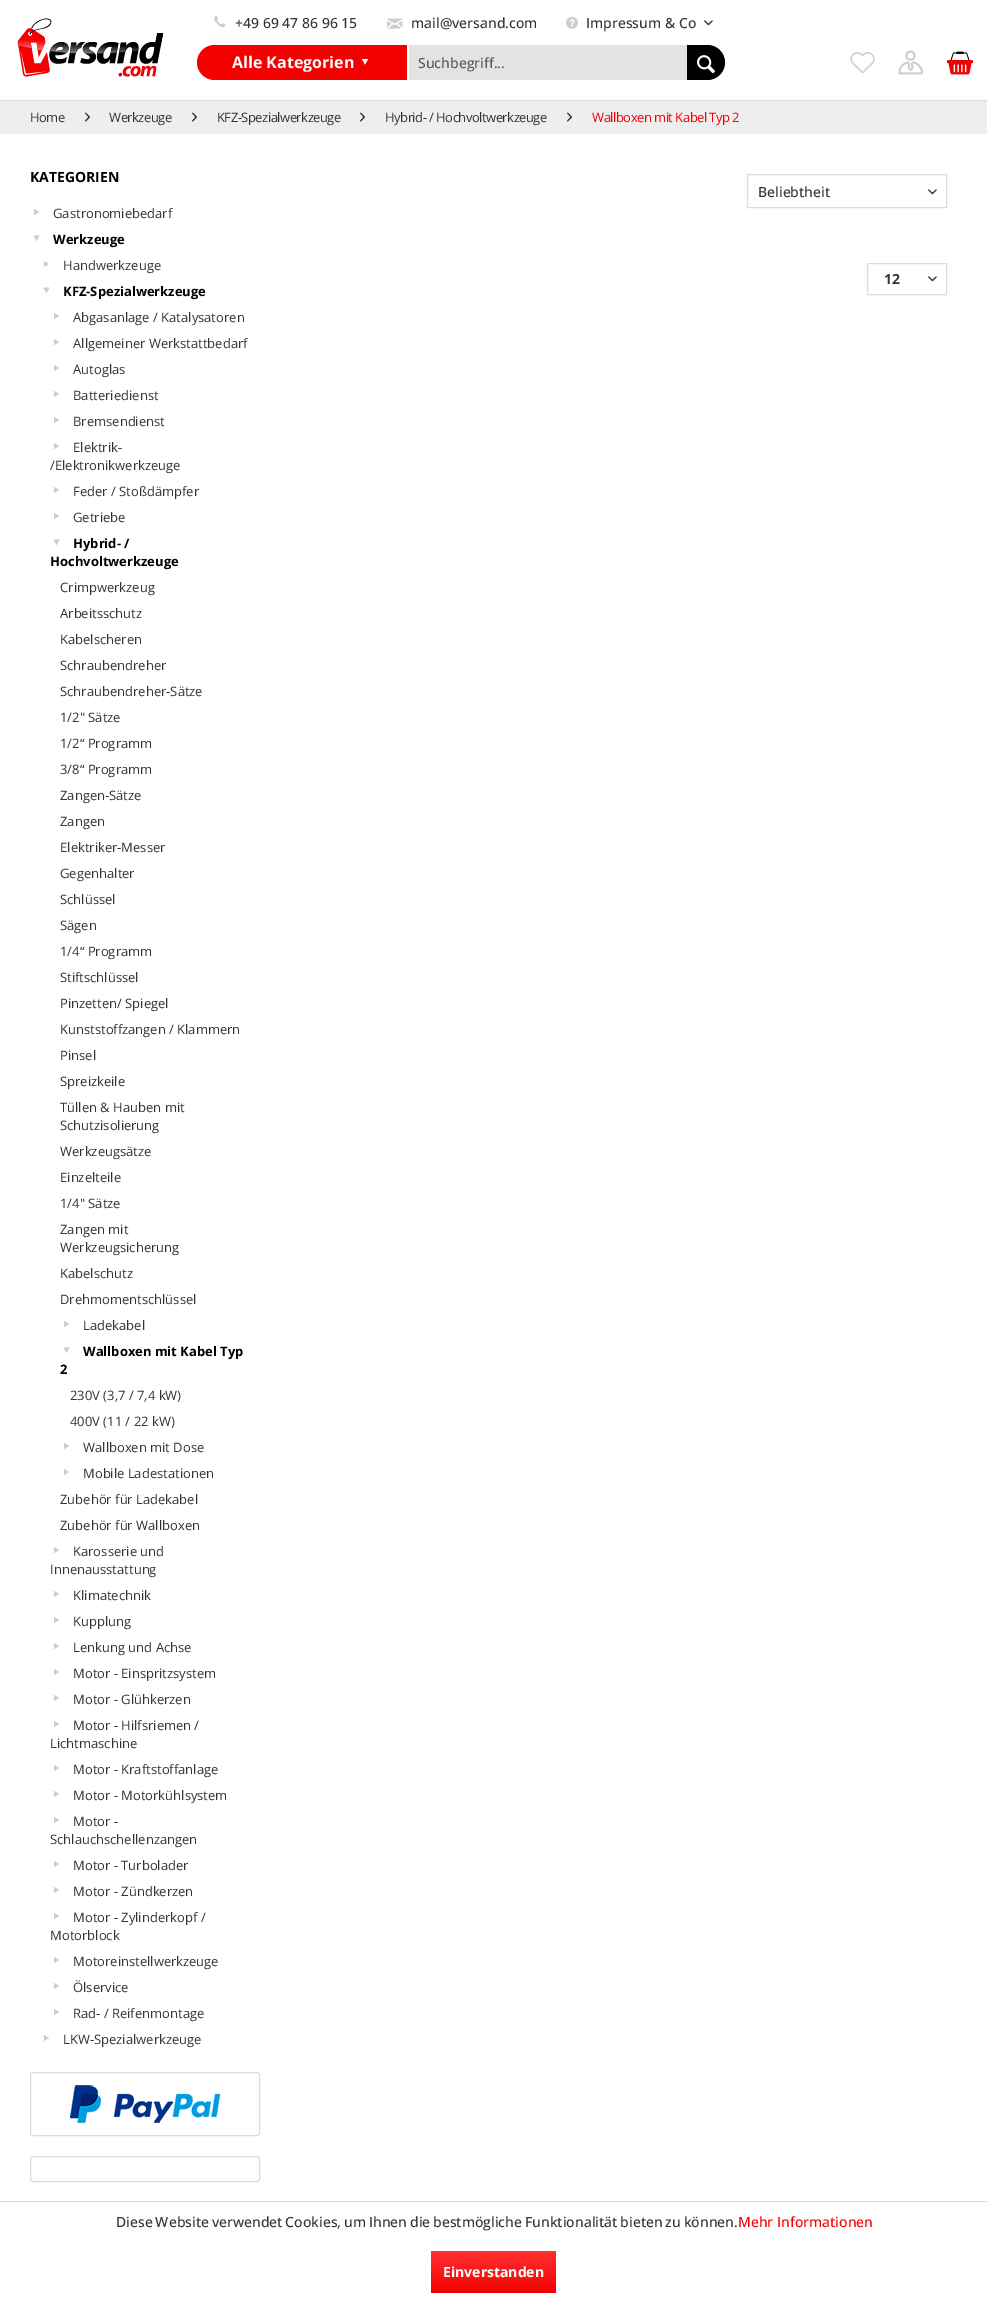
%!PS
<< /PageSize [987 2303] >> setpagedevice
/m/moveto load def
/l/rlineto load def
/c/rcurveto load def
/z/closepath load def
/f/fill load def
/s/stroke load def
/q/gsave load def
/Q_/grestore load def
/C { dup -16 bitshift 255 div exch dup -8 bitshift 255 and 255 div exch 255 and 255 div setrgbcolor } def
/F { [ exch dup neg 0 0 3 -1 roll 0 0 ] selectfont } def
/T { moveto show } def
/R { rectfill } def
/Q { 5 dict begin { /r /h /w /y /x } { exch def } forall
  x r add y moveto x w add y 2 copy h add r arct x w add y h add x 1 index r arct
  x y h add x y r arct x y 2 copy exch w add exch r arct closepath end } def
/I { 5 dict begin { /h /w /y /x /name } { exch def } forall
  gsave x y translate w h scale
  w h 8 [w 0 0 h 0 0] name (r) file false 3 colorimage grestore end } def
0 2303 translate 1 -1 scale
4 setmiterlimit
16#FFFFFF C
0 0 987 2303 R
16#DADAE5 C
0 100 987 1 R
(1.rgb) 17 18 147 59 I
(2.rgb) 214 16 12 12 I
/OpenSans-Medium 14 F
16#333333 C
(+49 69 47 86 96 15) 235 28 T
(3.rgb) 387 18 16 11 I
(mail@versand.com) 411 28 T
(4.rgb) 566 16 12 13 I
(Impressum & Co) 586 28 T
(5.rgb) 704 20 9 6 I
16#F30000 C
214.5 45 m 192.5 0 l 0 35 l -192.5 0 l -9.5 0 -17.5 -8 -17.5 -17.5 c 0 -9.5 8 -17.5 17.5 -17.5 c z f
/OpenSans-Bold 16 F
16#FFFFFF C
(Alle Kategorien) 232 68 T
368 59 m -6 0 l 3 5.5 l z f
16#E3E3E3 C
411 45 m 296.5 0 l 9.5 0 17.5 8 17.5 17.5 c 0 9.5 -8 17.5 -17.5 17.5 c -296.5 0 l -1 0 -2 -1 -2 -2 c 0 -31 l 0 -1 1 -2 2 -2 c z f
/OpenSans-Medium 14 F
16#595959 C
(Suchbegriff...) 418 68 T
16#000000 C
687 45 m 20.5 0 l 9.5 0 17.5 8 17.5 17.5 c 0 9.5 -8 17.5 -17.5 17.5 c -20.5 0 l z f
(6.rgb) 697 55 18 19 I
(7.rgb) 850 52 25 22 I
(8.rgb) 898 50 25 25 I
(9.rgb) 947 51 26 24 I
16#EEEEEE C
0 101 987 33 R
/OpenSans-Regular 13 F
16#333333 C
30 122 m -.5 0 (Home) ashow
(10.rgb) 85 112 5 10 I
109 122 m -.5 0 (Werkzeuge) ashow
(10.rgb) 192 112 5 10 I
217 122 m -.5 0 (KFZ-Spezialwerkzeuge) ashow
(10.rgb) 360 112 5 10 I
385 122 m -.5 0 (Hybrid- / Hochvoltwerkzeuge) ashow
(10.rgb) 567 112 5 10 I
16#F30000 C
592 122 m -.5 0 (Wallboxen mit Kabel Typ 2) ashow
/OpenSans-Bold 14 F
16#000000 C
(KATEGORIEN) 30 182 T
16#CCCCCC C
34 209 m 0 6 l 5 -3 l z f
/OpenSans-Regular 13 F
16#333333 C
(Gastronomiebedarf) 53 218 T
16#CCCCCC C
39.5 235.5 m -6 0 l 3 5.5 l z f
/OpenSans-Bold 13 F
16#000000 C
(Werkzeuge) 53 244 T
16#CCCCCC C
44 261 m 0 6 l 5 -3 l z f
/OpenSans-Regular 13 F
16#333333 C
(Handwerkzeuge) 63 270 T
16#CCCCCC C
49.5 287.5 m -6 0 l 3 5.5 l z f
/OpenSans-Bold 13 F
16#000000 C
(KFZ-Spezialwerkzeuge) 63 296 T
16#CCCCCC C
54 313 m 0 6 l 5 -3 l z f
/OpenSans-Regular 13 F
16#333333 C
(Abgasanlage / Katalysatoren) 73 322 T
16#CCCCCC C
54 339 m 0 6 l 5 -3 l z f
16#333333 C
(Allgemeiner Werkstattbedarf) 73 348 T
16#CCCCCC C
54 365 m 0 6 l 5 -3 l z f
16#333333 C
(Autoglas) 73 374 T
16#CCCCCC C
54 391 m 0 6 l 5 -3 l z f
16#333333 C
(Batteriedienst) 73 400 T
16#CCCCCC C
54 417 m 0 6 l 5 -3 l z f
16#333333 C
(Bremsendienst) 73 426 T
16#CCCCCC C
54 443 m 0 6 l 5 -3 l z f
16#333333 C
(Elektrik-) 73 452 T
(/Elektronikwerkzeuge) 50 470 T
16#CCCCCC C
54 487 m 0 6 l 5 -3 l z f
16#333333 C
(Feder / Stoßdämpfer) 73 496 T
16#CCCCCC C
54 513 m 0 6 l 5 -3 l z f
16#333333 C
(Getriebe) 73 522 T
16#CCCCCC C
59.5 539.5 m -6 0 l 3 5.5 l z f
/OpenSans-Bold 13 F
16#000000 C
(Hybrid- /) 73 548 T
(Hochvoltwerkzeuge) 50 566 T
/OpenSans-Regular 13 F
16#333333 C
(Crimpwerkzeug) 60 592 T
(Arbeitsschutz) 60 618 T
(Kabelscheren) 60 644 T
(Schraubendreher) 60 670 T
(Schraubendreher-Sätze) 60 696 T
(1/2" Sätze) 60 722 T
(1/2“ Programm) 60 748 T
(3/8“ Programm) 60 774 T
(Zangen-Sätze) 60 800 T
(Zangen) 60 826 T
(Elektriker-Messer) 60 852 T
(Gegenhalter) 60 878 T
(Schlüssel) 60 904 T
(Sägen) 60 930 T
(1/4“ Programm) 60 956 T
(Stiftschlüssel) 60 982 T
(Pinzetten/ Spiegel) 60 1008 T
(Kunststoffzangen / Klammern) 60 1034 T
(Pinsel) 60 1060 T
(Spreizkeile) 60 1086 T
(Tüllen & Hauben mit) 60 1112 T
(Schutzisolierung) 60 1130 T
(Werkzeugsätze) 60 1156 T
(Einzelteile) 60 1182 T
(1/4" Sätze) 60 1208 T
(Zangen mit) 60 1234 T
(Werkzeugsicherung) 60 1252 T
(Kabelschutz) 60 1278 T
(Drehmomentschlüssel) 60 1304 T
16#CCCCCC C
64 1321 m 0 6 l 5 -3 l z f
16#333333 C
(Ladekabel) 83 1330 T
16#CCCCCC C
69.5 1347.5 m -6 0 l 3 5.5 l z f
/OpenSans-Bold 13 F
16#000000 C
(Wallboxen mit Kabel Typ) 83 1356 T
(2) 60 1374 T
/OpenSans-Regular 13 F
16#333333 C
(230V \(3,7 / 7,4 kW\)) 70 1400 T
(400V \(11 / 22 kW\)) 70 1426 T
16#CCCCCC C
64 1443 m 0 6 l 5 -3 l z f
16#333333 C
(Wallboxen mit Dose) 83 1452 T
16#CCCCCC C
64 1469 m 0 6 l 5 -3 l z f
16#333333 C
(Mobile Ladestationen) 83 1478 T
(Zubehör für Ladekabel) 60 1504 T
(Zubehör für Wallboxen) 60 1530 T
16#CCCCCC C
54 1547 m 0 6 l 5 -3 l z f
16#333333 C
(Karosserie und) 73 1556 T
(Innenausstattung) 50 1574 T
16#CCCCCC C
54 1591 m 0 6 l 5 -3 l z f
16#333333 C
(Klimatechnik) 73 1600 T
16#CCCCCC C
54 1617 m 0 6 l 5 -3 l z f
16#333333 C
(Kupplung) 73 1626 T
16#CCCCCC C
54 1643 m 0 6 l 5 -3 l z f
16#333333 C
(Lenkung und Achse) 73 1652 T
16#CCCCCC C
54 1669 m 0 6 l 5 -3 l z f
16#333333 C
(Motor - Einspritzsystem) 73 1678 T
16#CCCCCC C
54 1695 m 0 6 l 5 -3 l z f
16#333333 C
(Motor - Glühkerzen) 73 1704 T
16#CCCCCC C
54 1721 m 0 6 l 5 -3 l z f
16#333333 C
(Motor - Hilfsriemen /) 73 1730 T
(Lichtmaschine) 50 1748 T
16#CCCCCC C
54 1765 m 0 6 l 5 -3 l z f
16#333333 C
(Motor - Kraftstoffanlage) 73 1774 T
16#CCCCCC C
54 1791 m 0 6 l 5 -3 l z f
16#333333 C
(Motor - Motorkühlsystem) 73 1800 T
16#CCCCCC C
54 1817 m 0 6 l 5 -3 l z f
16#333333 C
(Motor -) 73 1826 T
(Schlauchschellenzangen) 50 1844 T
16#CCCCCC C
54 1861 m 0 6 l 5 -3 l z f
16#333333 C
(Motor - Turbolader) 73 1870 T
16#CCCCCC C
54 1887 m 0 6 l 5 -3 l z f
16#333333 C
(Motor - Zündkerzen) 73 1896 T
16#CCCCCC C
54 1913 m 0 6 l 5 -3 l z f
16#333333 C
(Motor - Zylinderkopf /) 73 1922 T
(Motorblock) 50 1940 T
16#CCCCCC C
54 1957 m 0 6 l 5 -3 l z f
16#333333 C
(Motoreinstellwerkzeuge) 73 1966 T
16#CCCCCC C
54 1983 m 0 6 l 5 -3 l z f
16#333333 C
(Ölservice) 73 1992 T
16#CCCCCC C
54 2009 m 0 6 l 5 -3 l z f
16#333333 C
(Rad- / Reifenmontage) 73 2018 T
16#CCCCCC C
44 2035 m 0 6 l 5 -3 l z f
16#333333 C
(LKW-Spezialwerkzeuge) 63 2044 T
16#DADAE5 C
30.5 2072.5 229 63 2.5 Q s
(11.rgb) 70 2085 150 38 I
30.5 2156.5 229 25 2.5 Q s
747.5 174.5 199 33 rectstroke
/OpenSans-Medium 14 F
16#333333 C
(Beliebtheit) 758 197 T
(5.rgb) 928 189 9 6 I
16#DADAE5 C
867.5 263.5 79 31 rectstroke
/OpenSans-Bold 14 F
16#333333 C
(12) 884 284 T
(5.rgb) 928 276 9 6 I
16#DADAE5 C
0 2201 987 1 R
/OpenSans-Medium 14 F
16#333333 C
116 2227 m -.75 0 32 (Diese Website verwendet Cookies, um Ihnen die bestmögliche Funktionalität bieten zu können.) widthshow
16#F30000 C
(Mehr Informationen) 738 2227 T
q 431 2251 m 125 0 l 0 42 l -125 0 l z clip newpath
<< /ShadingType 2 /ColorSpace /DeviceRGB /Coords [494 2251 494 2293] /Extend [true true] /Function << /FunctionType 2 /Domain [0 1] /C0 [1 .192 .192] /C1 [.953 0 0] /N 1 >> >> shfill Q_
/OpenSans-Bold 14 F
16#FFFFFF C
(Einverstanden) 443 2277 T
showpage
